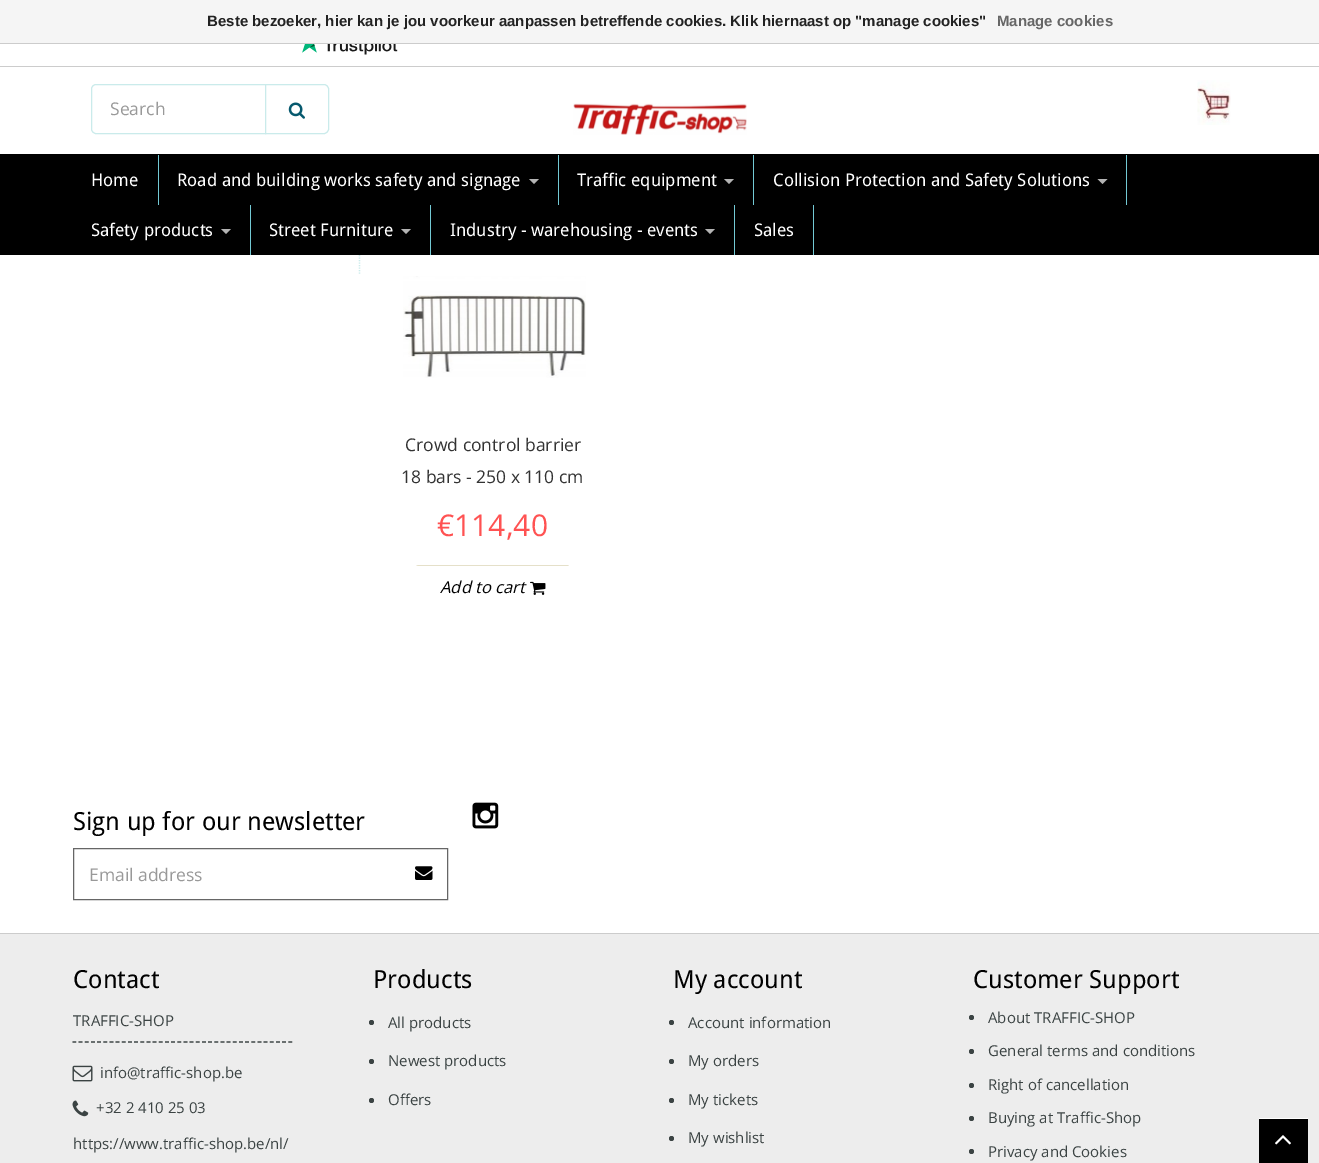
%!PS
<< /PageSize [1319 1163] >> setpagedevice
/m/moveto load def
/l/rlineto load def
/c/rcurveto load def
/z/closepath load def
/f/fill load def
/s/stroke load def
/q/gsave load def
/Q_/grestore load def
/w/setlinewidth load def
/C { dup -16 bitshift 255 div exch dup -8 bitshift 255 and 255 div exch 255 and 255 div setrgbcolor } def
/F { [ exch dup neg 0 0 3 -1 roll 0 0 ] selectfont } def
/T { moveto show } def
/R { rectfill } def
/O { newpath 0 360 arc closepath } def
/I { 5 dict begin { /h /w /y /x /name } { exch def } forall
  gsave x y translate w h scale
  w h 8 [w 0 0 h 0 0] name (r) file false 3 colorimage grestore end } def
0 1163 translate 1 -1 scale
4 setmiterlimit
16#FFFFFF C
0 0 1319 1163 R
16#CAEBEB C
1.2 w
[1.25 1.25] 0 setdash
359.5 -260 m 0 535 l s
16#F5F5F5 C
0 0 1319 43 R
16#CCCCCC C
0 43 1319 1 R
/LiberationSans-Bold 15 F
16#222222 C
(Beste bezoeker, hier kan je jou voorkeur aanpassen betreffende cookies. Klik hiernaast op "manage cookies") 207 26 T
16#666666 C
(Manage cookies) 997 26 T
16#FFFFFF C
358 45 3 109 R
(1.rgb) 302 44 96 11 I
16#CCCCCC C
0 66 1319 1 R
16#CAEBEB C
1 w
[] 0 setdash
96 84.5 m 169.5 0 l 0 49 l -169.5 0 l -2.5 0 -4.5 -2 -4.5 -4.5 c 0 -40 l 0 -2.5 2 -4.5 4.5 -4.5 c z s
/OpenSans-Regular 17.5 F
16#999999 C
(Search) 110 115 T
16#FFFFFF C
265.5 84.5 m 58.5 0 l 2.5 0 4.5 2 4.5 4.5 c 0 40 l 0 2.5 -2 4.5 -4.5 4.5 c -58.5 0 l z q f Q_
16#CAEBEB C
s
(2.rgb) 288 102 17 17 I
(3.rgb) 573 103 174 32 I
(4.rgb) 1197 80 34 45 I
16#000000 C
0 154 1319 101 R
16#73C9D4 C
158 155 1 50 R
/DroidSans-Regular 17.5 F
16#FFFFFF C
(Home) 91 186 T
16#73C9D4 C
558 155 1 50 R
16#FFFFFF C
(Road and building works safety and signage) 177 186 T
16#B3B3B3 C
529 179 m 10 0 l -5 5 l z f
16#73C9D4 C
753 155 1 50 R
16#FFFFFF C
(Traffic equipment) 577 186 T
16#B3B3B3 C
724 179 m 10 0 l -5 5 l z f
16#73C9D4 C
1126 155 1 50 R
16#FFFFFF C
(Collision Protection and Safety Solutions) 773 186 T
16#B3B3B3 C
1097.5 179 m 10 0 l -5 5 l z f
16#73C9D4 C
250 205 1 50 R
16#FFFFFF C
(Safety products) 91 236 T
16#B3B3B3 C
221 229 m 10 0 l -5 5 l z f
16#73C9D4 C
430 205 1 50 R
16#FFFFFF C
(Street Furniture) 269 236 T
16#B3B3B3 C
401 229 m 10 0 l -5 5 l z f
16#73C9D4 C
734 205 1 50 R
16#FFFFFF C
(Industry - warehousing - events) 450 236 T
16#B3B3B3 C
705 229 m 10 0 l -5 5 l z f
16#73C9D4 C
813 205 1 50 R
16#FFFFFF C
(Sales) 754 236 T
(5.rgb) 403 276 183 102 I
/OpenSans-Regular 17.5 F
16#333333 C
(Crowd control barrier) 405 451 T
(18 bars - 250 x 110 cm) 401 483 T
/OpenSans-Regular 30 F
16#FF5252 C
(€114,40) 437 536 T
16#E5E0C9 C
416 565 m 153 0 l -1 1 l -150 0 l z f
/OpenSans-Italic 16.5 F
16#000000 C
(Add to cart) 440 593 T
(6.rgb) 530 581 16 14 I
/DroidSans-Regular 25 F
(Sign up for our newsletter) 73 830 T
16#666666 C
73.5 848.5 374 51 rectstroke
/OpenSans-Regular 17.5 F
16#999999 C
(Email address) 89 881 T
(7.rgb) 415 866 18 14 I
(8.rgb) 472 802 27 27 I
16#EDEDED C
0 934 1319 229 R
16#CCCCCC C
0 933 1319 1 R
/DroidSans-Regular 25 F
16#000000 C
(Contact) 73 988 T
16#3B4343 C
1.2 w
[3.75 2.42] 0 setdash
72.5 1042 m 220 0 l s
/OpenSans-Regular 15 F
(TRAFFIC-SHOP) 73 1026 T
(9.rgb) 72 1065 21 17 I
(info@traffic-shop.be) 100 1078 T
(10.rgb) 72 1100 17 17 I
(+32 2 410 25 03) 96 1113 T
(https://www.traffic-shop.be/nl/) 73 1149 T
/DroidSans-Regular 25 F
16#000000 C
(Products) 373 988 T
16#3B4343 C
371.5 1022.5 2.5 O f
/OpenSans-Regular 15 F
(All products) 388 1028 T
371.5 1061.5 2.5 O f
(Newest products) 388 1066 T
371.5 1100.5 2.5 O f
(Offers) 388 1105 T
/DroidSans-Regular 25 F
16#000000 C
(My account) 673 988 T
16#3B4343 C
671.5 1022.5 2.5 O f
/OpenSans-Regular 15 F
(Account information) 688 1028 T
671.5 1061.5 2.5 O f
(My orders) 688 1066 T
671.5 1100.5 2.5 O f
(My tickets) 688 1105 T
671.5 1138.5 2.5 O f
(My wishlist) 688 1143 T
/DroidSans-Regular 25 F
16#000000 C
(Customer Support) 973 988 T
16#3B4343 C
971.5 1017.5 2.5 O f
/OpenSans-Regular 15 F
(About TRAFFIC-SHOP) 988 1023 T
971.5 1051.5 2.5 O f
(General terms and conditions) 988 1056 T
971.5 1085.5 2.5 O f
(Right of cancellation) 988 1090 T
971.5 1118.5 2.5 O f
(Buying at Traffic-Shop) 988 1123 T
971.5 1151.5 2.5 O f
(Privacy and Cookies) 988 1157 T
16#000000 C
1259 1119 49 44 R
16#FFFFFF C
1259 1118 49 1 R
(11.rgb) 1275 1135 16 10 I
showpage
